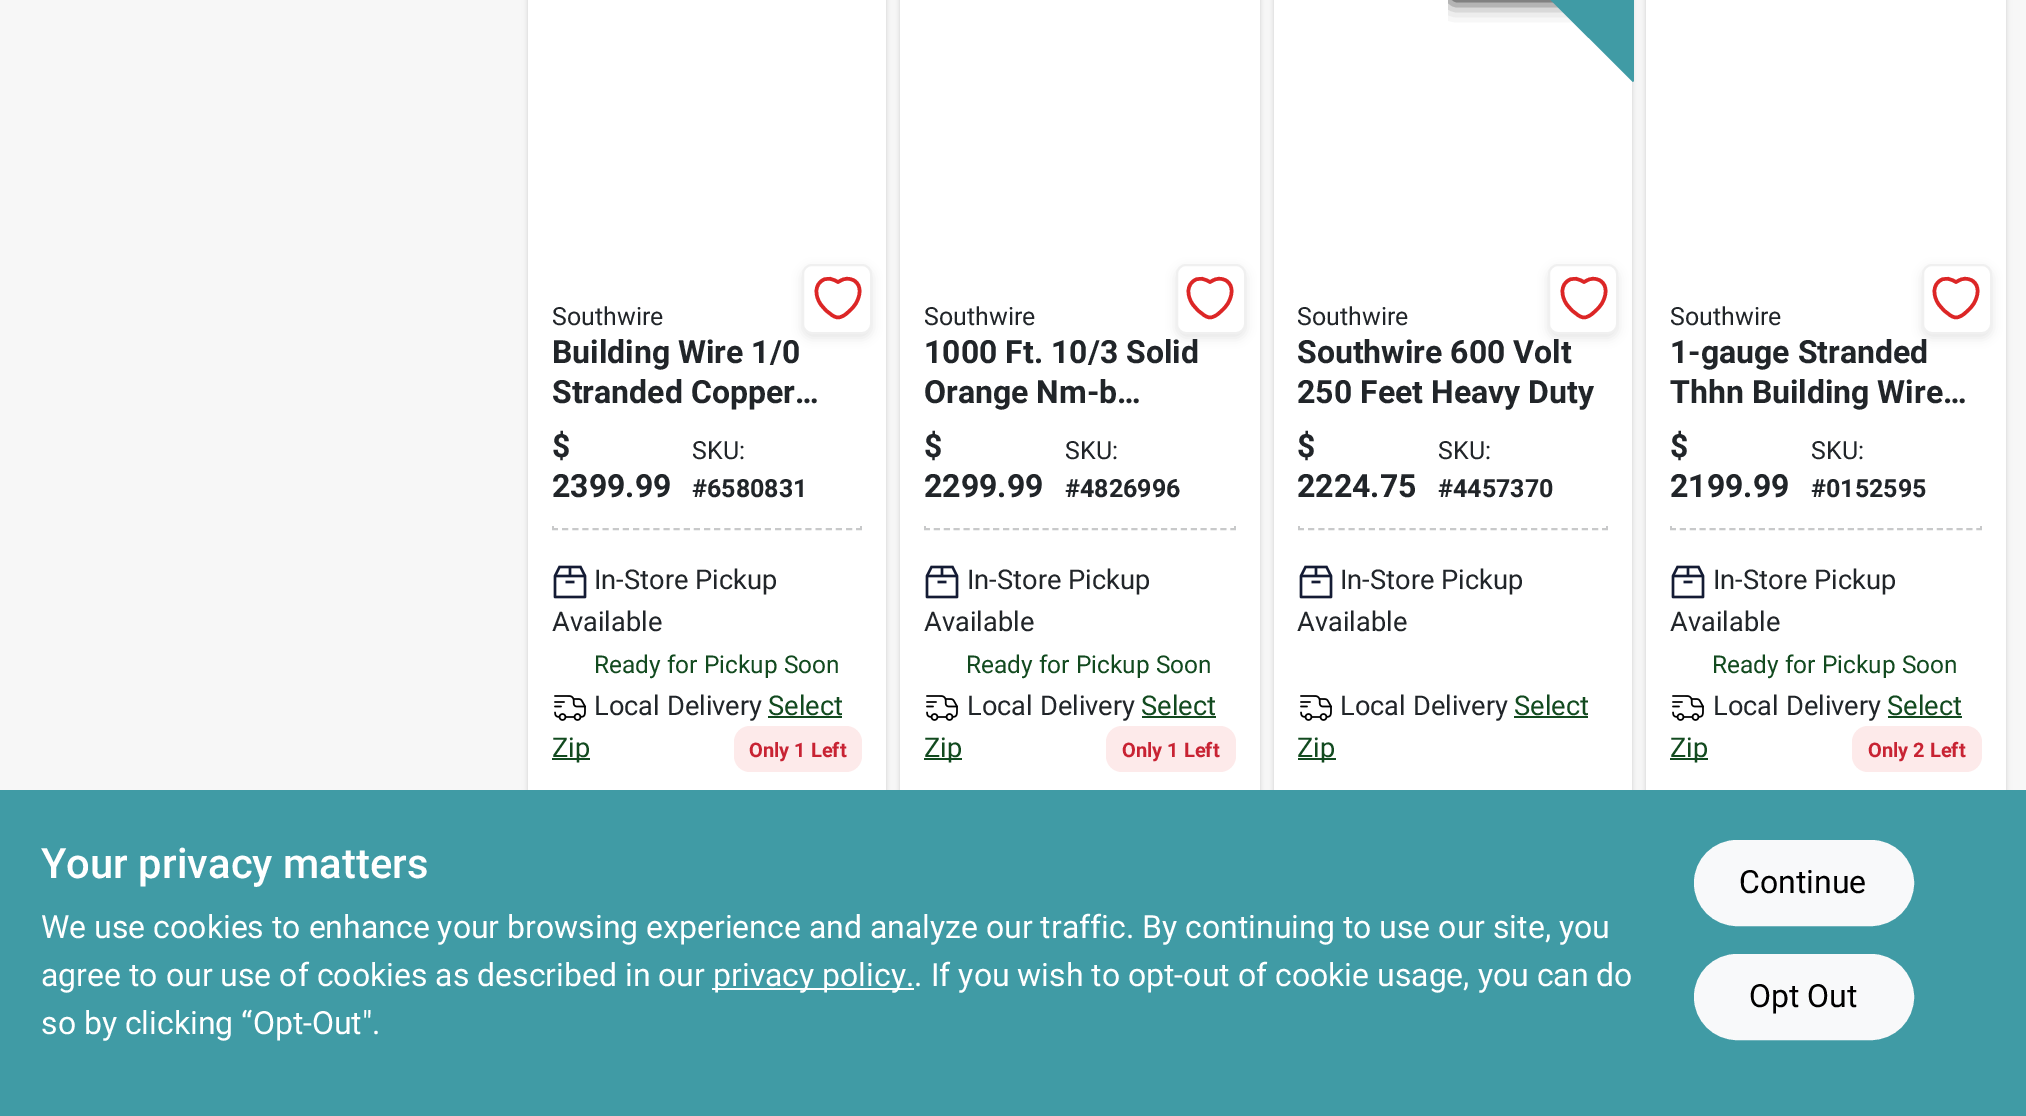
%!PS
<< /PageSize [2026 1116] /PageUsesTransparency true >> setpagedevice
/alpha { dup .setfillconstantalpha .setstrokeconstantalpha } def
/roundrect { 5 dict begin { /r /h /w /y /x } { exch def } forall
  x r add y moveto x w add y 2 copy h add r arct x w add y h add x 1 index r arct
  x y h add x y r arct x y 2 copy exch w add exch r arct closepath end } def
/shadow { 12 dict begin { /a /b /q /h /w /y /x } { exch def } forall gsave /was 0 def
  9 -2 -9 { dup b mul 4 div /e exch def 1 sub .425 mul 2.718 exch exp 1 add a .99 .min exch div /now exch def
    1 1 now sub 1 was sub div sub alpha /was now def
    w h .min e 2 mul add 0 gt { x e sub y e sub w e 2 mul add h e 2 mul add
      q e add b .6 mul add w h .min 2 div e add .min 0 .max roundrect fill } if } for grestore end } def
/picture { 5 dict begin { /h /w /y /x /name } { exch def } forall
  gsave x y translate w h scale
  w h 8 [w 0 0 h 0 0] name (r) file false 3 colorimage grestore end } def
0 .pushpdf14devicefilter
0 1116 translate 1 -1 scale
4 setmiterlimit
0.969 setgray
0 0 2026 1116 rectfill
0 setgray
528 -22 358 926 16 2 0.06 shadow
528 -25 358 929 16 3 0.1 shadow
1 setgray
528 0 358 790 rectfill
0 setgray
802 268 70 70 10 5 0.1 shadow
1 setgray
803 265 68 68 9 roundrect gsave fill grestore
0.941 setgray
2 setlinewidth
stroke
0.863 0.149 0.149 setrgbcolor
3.5 setlinewidth
1 setlinecap
newpath 854 280.5 moveto 849.5 278 844.5 278 840 281 curveto 838 282 lineto 836 281 lineto 832 278.5 828 278 824 279.5 curveto 814 284 815 296 820.5 304 curveto 823.5 308.5 828 313 833.5 316 curveto 838 319 842 317 846 314 curveto 850.5 310 852.5 308.5 855.5 304 curveto 860 297 862.5 285.5 854 280.5 curveto closepath stroke
/Roboto-Regular [25 0 0 -25 0 0] selectfont
0.129 0.145 0.161 setrgbcolor
552 325 moveto (Southwire) show
/Roboto-Bold [32 0 0 -32 0 0] selectfont
552 363 moveto (Building Wire 1/0) show
552 403 moveto (Stranded Copper…) show
552 457 moveto ($) show
552 497 moveto (2399.99) show
/Roboto-Regular [25 0 0 -25 0 0] selectfont
692 459 moveto (SKU:) show
/Roboto-Bold [25 0 0 -25 0 0] selectfont
692 497 moveto (#6580831) show
0.784 0.788 0.792 setrgbcolor
860 526 2 4 rectfill
2 setlinewidth
0 setlinecap
[6 4.14] 0 setdash
newpath 552 529 moveto 862 529 lineto stroke
552 526 2 4 rectfill
(img1.rgb) 553 565 34 34 picture
/Roboto-Regular [27.25 0 0 -27.25 0 0] selectfont
0.129 0.145 0.161 setrgbcolor
594 589 moveto (In-Store Pickup) show
552 631 moveto (Available) show
/Roboto-Regular [24.5 0 0 -24.5 0 0] selectfont
0.071 0.29 0.122 setrgbcolor
594 673 moveto (Ready for Pickup Soon) show
(img2.rgb) 554 695 32 26 picture
/Roboto-Regular [27.25 0 0 -27.25 0 0] selectfont
0.129 0.145 0.161 setrgbcolor
594 715 moveto (Local Delivery) show
0.071 0.29 0.122 setrgbcolor
768 715 moveto (Select) show
768 716 74 2 rectfill
552 758 38 2 rectfill
552 757 moveto (Zip) show
0.992 0.918 0.918 setrgbcolor
734 726 128 46 16 roundrect fill
/Roboto-Bold [20 0 0 -20 0 0] selectfont
0.784 0.137 0.2 setrgbcolor
749 757 moveto (Only 1 Left) show
0 setgray
900 -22 360 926 16 2 0.06 shadow
900 -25 360 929 16 3 0.1 shadow
1 setgray
900 0 360 790 rectfill
0 setgray
1176 268 70 70 10 5 0.1 shadow
1 setgray
1177 265 68 68 9 roundrect gsave fill grestore
0.941 setgray
[] 0 setdash
stroke
0.863 0.149 0.149 setrgbcolor
3.5 setlinewidth
1 setlinecap
newpath 1226 280.5 moveto 1221.5 278 1216.5 278 1212 281 curveto 1210 282 lineto 1208 281 lineto 1204 278.5 1200 278 1196 279.5 curveto 1186 284 1187 296 1192.5 304 curveto 1195.5 308.5 1200 313 1205.5 316 curveto 1210 319 1214 317 1218 314 curveto 1222.5 310 1224.5 308.5 1227.5 304 curveto 1232 297 1234.5 285.5 1226 280.5 curveto closepath stroke
/Roboto-Regular [25 0 0 -25 0 0] selectfont
0.129 0.145 0.161 setrgbcolor
924 325 moveto (Southwire) show
/Roboto-Bold [32 0 0 -32 0 0] selectfont
924 363 moveto (1000 Ft. 10/3 Solid) show
924 403 moveto (Orange Nm-b…) show
924 457 moveto ($) show
924 497 moveto (2299.99) show
/Roboto-Regular [25 0 0 -25 0 0] selectfont
1065 459 moveto (SKU:) show
/Roboto-Bold [25 0 0 -25 0 0] selectfont
1065 497 moveto (#4826996) show
0.784 0.788 0.792 setrgbcolor
1234 526 2 4 rectfill
2 setlinewidth
0 setlinecap
[6 3.88] 0 setdash
newpath 924 529 moveto 1236 529 lineto stroke
924 526 2 4 rectfill
(img1.rgb) 925 565 34 34 picture
/Roboto-Regular [27.25 0 0 -27.25 0 0] selectfont
0.129 0.145 0.161 setrgbcolor
967 589 moveto (In-Store Pickup) show
924 631 moveto (Available) show
/Roboto-Regular [24.5 0 0 -24.5 0 0] selectfont
0.071 0.29 0.122 setrgbcolor
966 673 moveto (Ready for Pickup Soon) show
(img2.rgb) 926 695 32 26 picture
/Roboto-Regular [27.25 0 0 -27.25 0 0] selectfont
0.129 0.145 0.161 setrgbcolor
967 715 moveto (Local Delivery) show
0.071 0.29 0.122 setrgbcolor
1141 715 moveto (Select) show
1142 716 74 2 rectfill
924 758 38 2 rectfill
924 757 moveto (Zip) show
0.992 0.918 0.918 setrgbcolor
1106 726 130 46 16 roundrect fill
/Roboto-Bold [20 0 0 -20 0 0] selectfont
0.784 0.137 0.2 setrgbcolor
1122 757 moveto (Only 1 Left) show
0 setgray
1274 -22 358 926 16 2 0.06 shadow
1274 -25 358 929 16 3 0.1 shadow
1 setgray
1274 0 358 790 rectfill
0 setgray
1646 -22 360 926 16 2 0.06 shadow
1646 -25 360 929 16 3 0.1 shadow
1 setgray
1646 0 360 790 rectfill
gsave
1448 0 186 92 rectclip
0 setgray
1452 -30 230 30 0 10 1 shadow
grestore
gsave
1448 0 186 92 rectclip
0.251 0.608 0.647 setrgbcolor
newpath 1501 -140 moveto 1678 37 lineto 1633 82 lineto 1456 -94 lineto closepath fill
grestore
0 setgray
1548 268 70 70 10 5 0.1 shadow
1 setgray
1549 265 68 68 9 roundrect gsave fill grestore
0.941 setgray
[] 0 setdash
stroke
0.863 0.149 0.149 setrgbcolor
3.5 setlinewidth
1 setlinecap
newpath 1600 280.5 moveto 1595.5 278 1590.5 278 1586 281 curveto 1584 282 lineto 1582 281 lineto 1578 278.5 1574 278 1570 279.5 curveto 1560 284 1561 296 1566.5 304 curveto 1569.5 308.5 1574 313 1579.5 316 curveto 1584 319 1588 317 1592 314 curveto 1596.5 310 1598.5 308.5 1601.5 304 curveto 1606 297 1608.5 285.5 1600 280.5 curveto closepath stroke
/Roboto-Regular [25 0 0 -25 0 0] selectfont
0.129 0.145 0.161 setrgbcolor
1297 325 moveto (Southwire) show
/Roboto-Bold [32 0 0 -32 0 0] selectfont
1297 363 moveto (Southwire 600 Volt) show
1297 403 moveto (250 Feet Heavy Duty) show
1297 457 moveto ($) show
1297 497 moveto (2224.75) show
/Roboto-Regular [25 0 0 -25 0 0] selectfont
1438 459 moveto (SKU:) show
/Roboto-Bold [25 0 0 -25 0 0] selectfont
1438 497 moveto (#4457370) show
0.784 0.788 0.792 setrgbcolor
1606 526 2 4 rectfill
2 setlinewidth
0 setlinecap
[6 4.14] 0 setdash
newpath 1298 529 moveto 1608 529 lineto stroke
1298 526 2 4 rectfill
(img1.rgb) 1299 565 34 34 picture
/Roboto-Regular [27.25 0 0 -27.25 0 0] selectfont
0.129 0.145 0.161 setrgbcolor
1340 589 moveto (In-Store Pickup) show
1297 631 moveto (Available) show
(img2.rgb) 1300 695 32 26 picture
1340 715 moveto (Local Delivery) show
0.071 0.29 0.122 setrgbcolor
1514 715 moveto (Select) show
1514 716 74 2 rectfill
1298 758 38 2 rectfill
1297 757 moveto (Zip) show
0 setgray
1922 268 70 70 10 5 0.1 shadow
1 setgray
1923 265 68 68 9 roundrect gsave fill grestore
0.941 setgray
[] 0 setdash
stroke
0.863 0.149 0.149 setrgbcolor
3.5 setlinewidth
1 setlinecap
newpath 1972 280.5 moveto 1967.5 278 1962.5 278 1958 281 curveto 1956 282 lineto 1954 281 lineto 1950 278.5 1946 278 1942 279.5 curveto 1932 284 1933 296 1938.5 304 curveto 1941.5 308.5 1946 313 1951.5 316 curveto 1956 319 1960 317 1964 314 curveto 1968.5 310 1970.5 308.5 1973.5 304 curveto 1978 297 1980.5 285.5 1972 280.5 curveto closepath stroke
/Roboto-Regular [25 0 0 -25 0 0] selectfont
0.129 0.145 0.161 setrgbcolor
1670 325 moveto (Southwire) show
/Roboto-Bold [32 0 0 -32 0 0] selectfont
1670 363 moveto (1-gauge Stranded) show
1670 403 moveto (Thhn Building Wire…) show
1670 457 moveto ($) show
1670 497 moveto (2199.99) show
/Roboto-Regular [25 0 0 -25 0 0] selectfont
1811 459 moveto (SKU:) show
/Roboto-Bold [25 0 0 -25 0 0] selectfont
1811 497 moveto (#0152595) show
0.784 0.788 0.792 setrgbcolor
1980 526 2 4 rectfill
2 setlinewidth
0 setlinecap
[6 3.88] 0 setdash
newpath 1670 529 moveto 1982 529 lineto stroke
1670 526 2 4 rectfill
(img1.rgb) 1671 565 34 34 picture
/Roboto-Regular [27.25 0 0 -27.25 0 0] selectfont
0.129 0.145 0.161 setrgbcolor
1713 589 moveto (In-Store Pickup) show
1670 631 moveto (Available) show
/Roboto-Regular [24.5 0 0 -24.5 0 0] selectfont
0.071 0.29 0.122 setrgbcolor
1712 673 moveto (Ready for Pickup Soon) show
(img2.rgb) 1672 695 32 26 picture
/Roboto-Regular [27.25 0 0 -27.25 0 0] selectfont
0.129 0.145 0.161 setrgbcolor
1713 715 moveto (Local Delivery) show
0.071 0.29 0.122 setrgbcolor
1887 715 moveto (Select) show
1888 716 74 2 rectfill
1670 758 38 2 rectfill
1670 757 moveto (Zip) show
0.992 0.918 0.918 setrgbcolor
1852 726 130 46 16 roundrect fill
/Roboto-Bold [20 0 0 -20 0 0] selectfont
0.784 0.137 0.2 setrgbcolor
1868 757 moveto (Only 2 Left) show
0.251 0.608 0.647 setrgbcolor
0 790 2026 326 rectfill
/Roboto-Medium [41.75 0 0 -41.75 0 0] selectfont
1 setgray
41 878 moveto (Your privacy matters) show
/Roboto-Regular [32 0 0 -32 0 0] selectfont
41 938 moveto (We use cookies to enhance your browsing experience and analyze our traffic. By continuing to use our site, you) show
41 986 moveto (agree to our use of cookies as described in our) show
712 988 202 2 rectfill
713 986 moveto (privacy policy.. If you wish to opt-out of cookie usage, you can do) show
41 1034 moveto (so by clicking “Opt-Out".) show
0.973 0.976 0.98 setrgbcolor
1695 841 218 84 42 roundrect gsave fill grestore
[] 0 setdash
stroke
0 setgray
1739 893 moveto (Continue) show
0.973 0.976 0.98 setrgbcolor
1695 955 218 84 42 roundrect gsave fill grestore
stroke
0 setgray
1749 1007 moveto (Opt Out) show
.poppdf14devicefilter showpage
